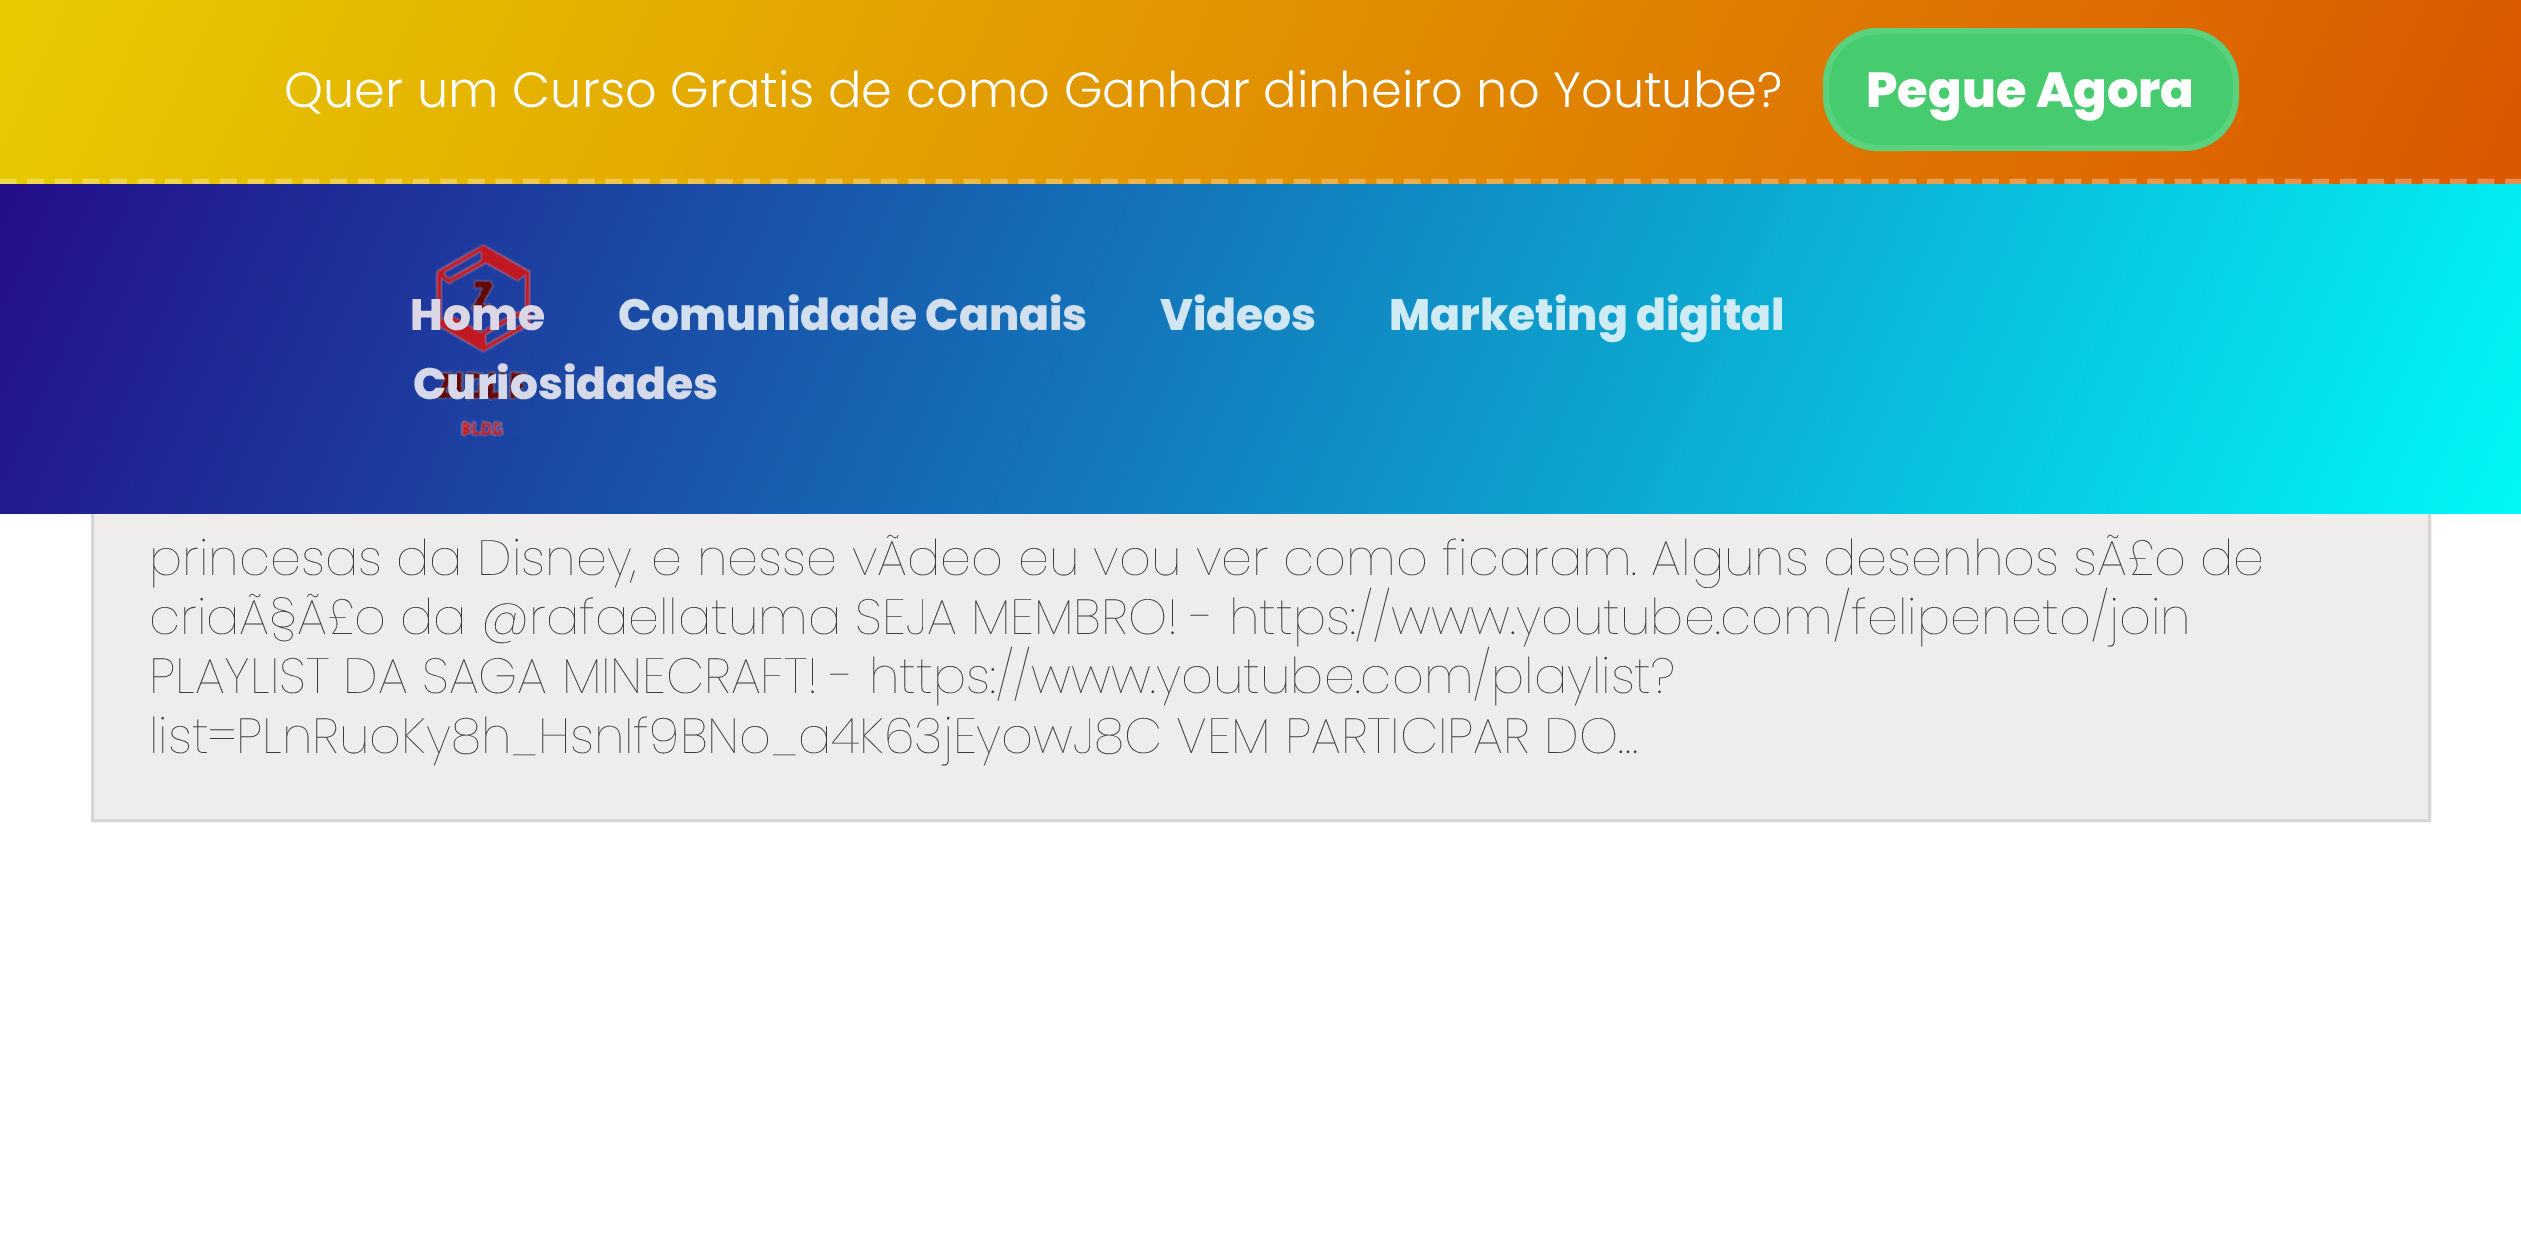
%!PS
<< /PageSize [2521 1245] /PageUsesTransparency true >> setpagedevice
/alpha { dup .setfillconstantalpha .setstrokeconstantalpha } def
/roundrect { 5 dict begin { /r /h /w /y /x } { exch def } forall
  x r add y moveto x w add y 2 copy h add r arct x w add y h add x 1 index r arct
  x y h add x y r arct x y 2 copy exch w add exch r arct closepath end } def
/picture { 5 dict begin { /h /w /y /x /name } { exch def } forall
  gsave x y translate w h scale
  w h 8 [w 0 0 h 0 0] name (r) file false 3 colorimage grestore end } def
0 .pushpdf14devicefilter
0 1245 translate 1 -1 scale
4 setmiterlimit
1 setgray
0 0 2521 1245 rectfill
gsave newpath 0 0 moveto 2521 0 lineto 2521 179 lineto 0 179 lineto closepath clip newpath
<< /ShadingType 2 /ColorSpace /DeviceRGB /Coords [175 -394 2346 573] /Extend [true true] /Function << /FunctionType 2 /Domain [0 1] /C0 [0.91 0.8 0] /C1 [0.859 0.341 0] /N 1 >> >> shfill grestore
gsave newpath 0 179 moveto 2521 179 lineto 2521 184 lineto 0 184 lineto closepath clip newpath
<< /ShadingType 2 /ColorSpace /DeviceRGB /Coords [175 -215 2346 751] /Extend [true true] /Function << /FunctionType 2 /Domain [0 1] /C0 [0.91 0.8 0] /C1 [0.859 0.341 0] /N 1 >> >> shfill grestore
0.3 alpha
5.5 setlinewidth
[16.5 11.03] 0 setdash
newpath 0 181.5 moveto 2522 181.5 lineto stroke
/Poppins-Light [49.5 0 0 -49.5 0 0] selectfont
1 alpha
284 107 moveto (Quer um Curso Gratis de como Ganhar dinheiro no Youtube?) show
0.275 0.8 0.431 setrgbcolor
1823 28 416 123 55 roundrect fill
0.1 alpha
1 setgray
6 setlinewidth
[] 0 setdash
1826 31 410 117 52 roundrect stroke
/Poppins-ExtraBold [49.5 0 0 -49.5 0 0] selectfont
1 alpha
1866 107 moveto (Pegue Agora) show
0.937 0.925 0.925 setrgbcolor
94 514 2334 305 rectfill
0.843 0.831 0.831 setrgbcolor
3 setlinewidth
92.5 411.5 2337 409 rectstroke
gsave newpath 0 184 moveto 2521 184 lineto 2521 514 lineto 0 514 lineto closepath clip newpath
<< /ShadingType 2 /ColorSpace /DeviceRGB /Coords [147 -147 2374 845] /Extend [true true] /Function << /FunctionType 2 /Domain [0 1] /C0 [0.145 0.055 0.541] /C1 [0 0.976 0.969] /N 1 >> >> shfill grestore
(img1.rgb) 435 243 96 194 picture
/Poppins-ExtraBold [44 0 0 -44 0 0] selectfont
0.859 0.843 0.902 setrgbcolor
410 330 moveto (Home) show
0.82 0.875 0.937 setrgbcolor
618 330 moveto (Comunidade Canais) show
0.816 0.902 0.949 setrgbcolor
1160 330 moveto (Videos) show
0.812 0.925 0.961 setrgbcolor
1389 330 moveto (Marketing digital) show
0.835 0.851 0.914 setrgbcolor
413 399 moveto (Curiosidades) show
/Poppins-Thin [49.5 0 0 -49.5 0 0] selectfont
0.251 0.235 0.235 setrgbcolor
149 575 moveto (princesas da Disney, e nesse vÃdeo eu vou ver como ficaram. Alguns desenhos sÃ£o de) show
149 634 moveto (criaÃ§Ã£o da @rafaellatuma SEJA MEMBRO! - https://www.youtube.com/felipeneto/join) show
149 693 moveto (PLAYLIST DA SAGA MINECRAFT! - https://www.youtube.com/playlist?) show
149 753 moveto (list=PLnRuoKy8h_HsnIf9BNo_a4K63jEyowJ8C VEM PARTICIPAR DO…) show
.poppdf14devicefilter showpage
